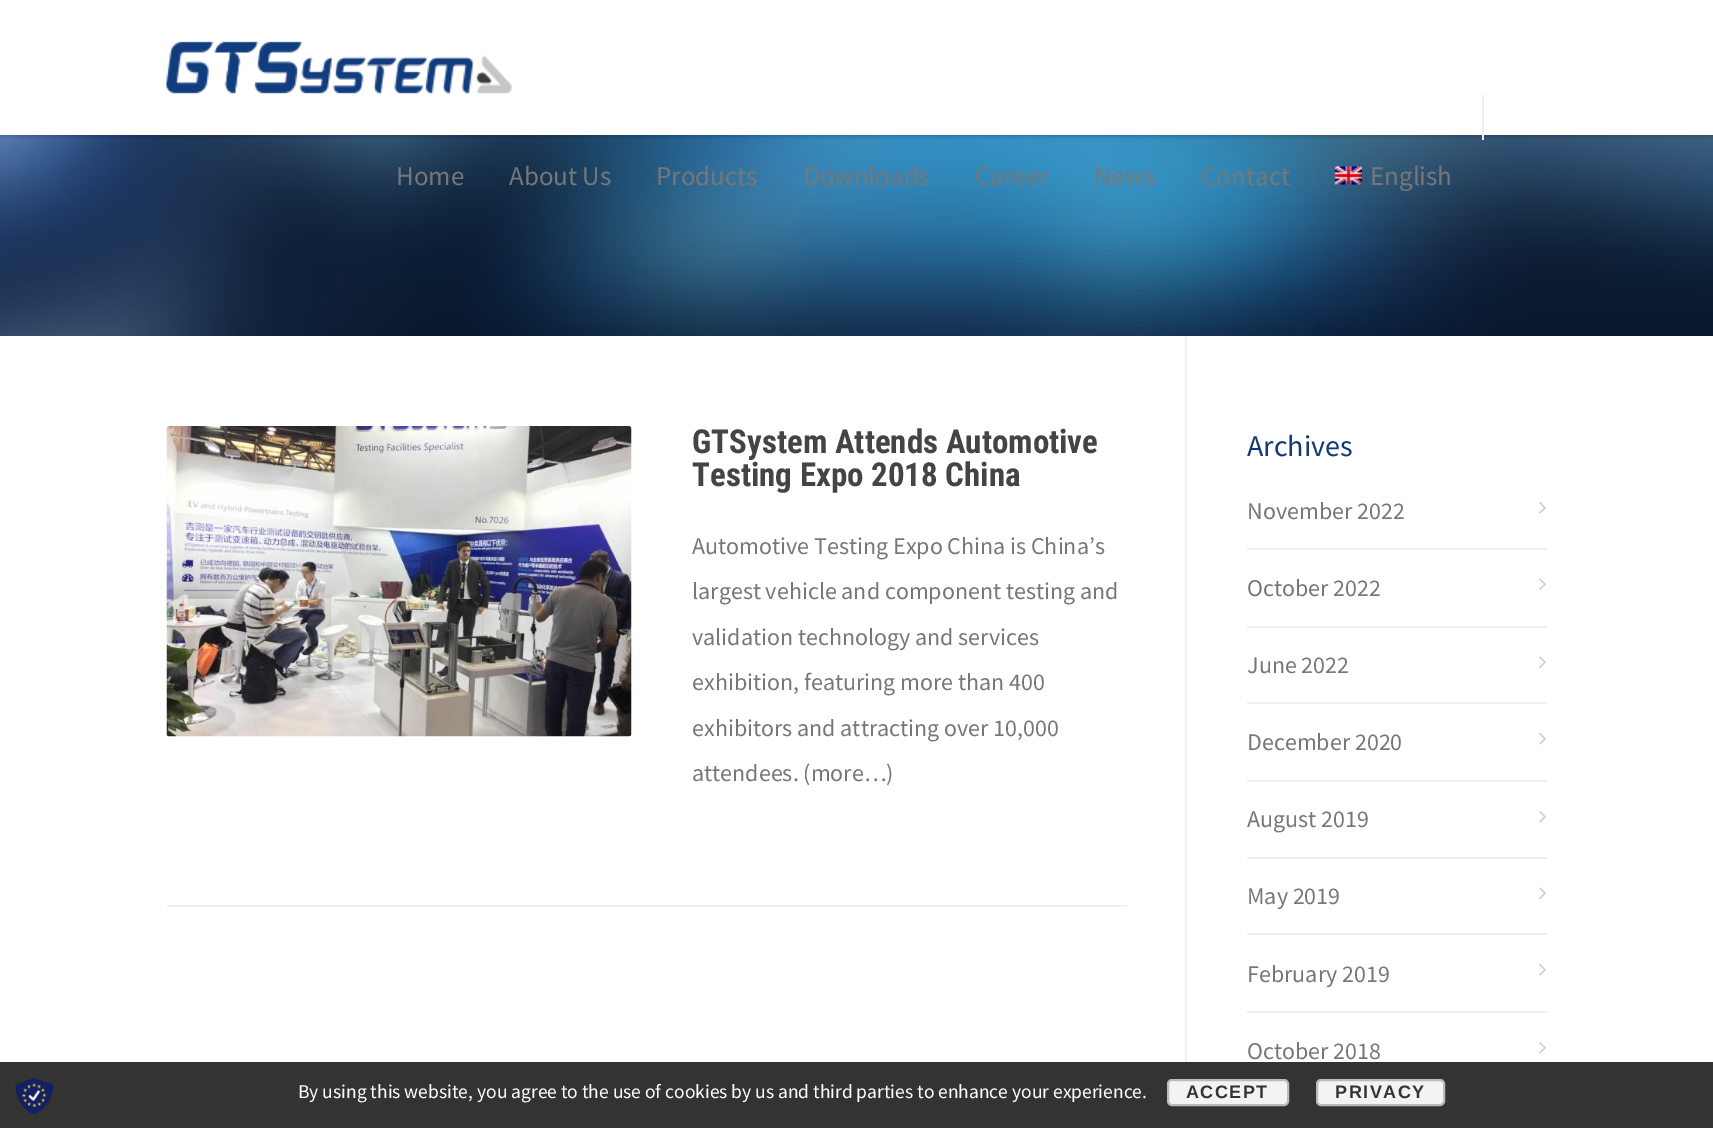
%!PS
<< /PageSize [1713 1128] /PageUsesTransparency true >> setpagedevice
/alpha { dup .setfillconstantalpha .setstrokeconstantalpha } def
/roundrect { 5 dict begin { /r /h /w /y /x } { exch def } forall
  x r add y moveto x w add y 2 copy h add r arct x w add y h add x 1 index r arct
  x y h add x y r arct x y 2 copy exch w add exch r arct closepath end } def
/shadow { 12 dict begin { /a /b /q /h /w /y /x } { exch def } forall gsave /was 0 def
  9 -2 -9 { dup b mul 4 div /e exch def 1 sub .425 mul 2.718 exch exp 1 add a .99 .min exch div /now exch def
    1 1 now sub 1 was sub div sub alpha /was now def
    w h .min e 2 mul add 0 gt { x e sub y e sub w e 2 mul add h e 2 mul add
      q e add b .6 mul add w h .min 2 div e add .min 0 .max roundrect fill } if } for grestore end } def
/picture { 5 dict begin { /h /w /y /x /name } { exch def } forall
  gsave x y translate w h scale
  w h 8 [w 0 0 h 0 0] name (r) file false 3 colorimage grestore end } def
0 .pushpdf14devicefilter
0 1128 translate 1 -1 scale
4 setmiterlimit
1 setgray
0 0 1713 1128 rectfill
(img1.rgb) 0 135 1713 201 picture
0 setgray
-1 -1 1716 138 0 1.5 0.16 shadow
1 setgray
0 0 1713 135 rectfill
(img2.rgb) 166 41 346 53 picture
0.937 setgray
1482 95 2 45 rectfill
/SourceSansPro-Regular [27 0 0 -27 0 0] selectfont
0.467 setgray
396 185 moveto (Home) show
509 185 moveto (About Us) show
656 185 moveto (Products) show
803 185 moveto (Downloads) show
975 185 moveto (Career) show
1094 185 moveto (News) show
1201 185 moveto (Contact) show
(img3.rgb) 1334 166 28 19 picture
1370 185 moveto (English) show
0.937 setgray
167 905 960 2 rectfill
(img4.rgb) 166 426 466 311 picture
/RobotoCondensed-Bold [33 0 0 -33 0 0] selectfont
0.267 setgray
692 453 moveto (GTSystem Attends Automotive) show
692 486 moveto (Testing Expo 2018 China) show
/SourceSansPro-Regular [24 0 0 -24 0 0] selectfont
0.467 setgray
692 554 moveto (Automotive Testing Expo China is China’s) show
692 599 moveto (largest vehicle and component testing and) show
692 645 moveto (validation technology and services) show
692 690 moveto (exhibition, featuring more than 400) show
692 736 moveto (exhibitors and attracting over 10,000) show
692 781 moveto (attendees. \(more…\)) show
0.937 setgray
1185 336 2 726 rectfill
/SourceSansPro-Regular [30 0 0 -30 0 0] selectfont
0.071 0.224 0.447 setrgbcolor
1247 456 moveto (Archives) show
0.937 setgray
1247 548 300 2 rectfill
/SourceSansPro-Regular [24 0 0 -24 0 0] selectfont
0.467 setgray
1247 519 moveto (November 2022) show
(img5.rgb) 1539 502 7 12 picture
0.937 setgray
1247 626 300 2 rectfill
0.467 setgray
1247 596 moveto (October 2022) show
(img6.rgb) 1539 578 7 12 picture
0.937 setgray
1247 702 300 2 rectfill
0.467 setgray
1247 673 moveto (June 2022) show
(img6.rgb) 1539 656 7 12 picture
0.937 setgray
1247 780 300 2 rectfill
0.467 setgray
1247 750 moveto (December 2020) show
(img5.rgb) 1539 733 7 12 picture
0.937 setgray
1247 857 300 2 rectfill
0.467 setgray
1247 827 moveto (August 2019) show
(img5.rgb) 1539 811 7 12 picture
0.937 setgray
1247 933 300 2 rectfill
0.467 setgray
1247 904 moveto (May 2019) show
(img6.rgb) 1539 887 7 12 picture
0.937 setgray
1247 1011 300 2 rectfill
0.467 setgray
1247 982 moveto (February 2019) show
(img5.rgb) 1539 964 7 12 picture
1247 1059 moveto (October 2018) show
(img5.rgb) 1539 1042 7 12 picture
0.2 setgray
0 1062 1713 66 rectfill
(img7.rgb) 15 1077 38 37 picture
/SourceSansPro-Regular [19.5 0 0 -19.5 0 0] selectfont
1 setgray
298 1098 moveto (By using this website, you agree to the use of cookies by us and third parties to enhance your experience.) show
0.953 setgray
1168 1080 120 25 4 roundrect gsave fill grestore
0.733 setgray
2 setlinewidth
stroke
/LiberationSans-Bold [18 0 0 -18 0 0] selectfont
0.2 setgray
1186 1098 moveto 1.5 0 (ACCEPT) ashow
0.953 setgray
1317 1080 127 25 4 roundrect gsave fill grestore
0.733 setgray
stroke
0.2 setgray
1335 1098 moveto 1.5 0 (PRIVACY) ashow
.poppdf14devicefilter showpage
